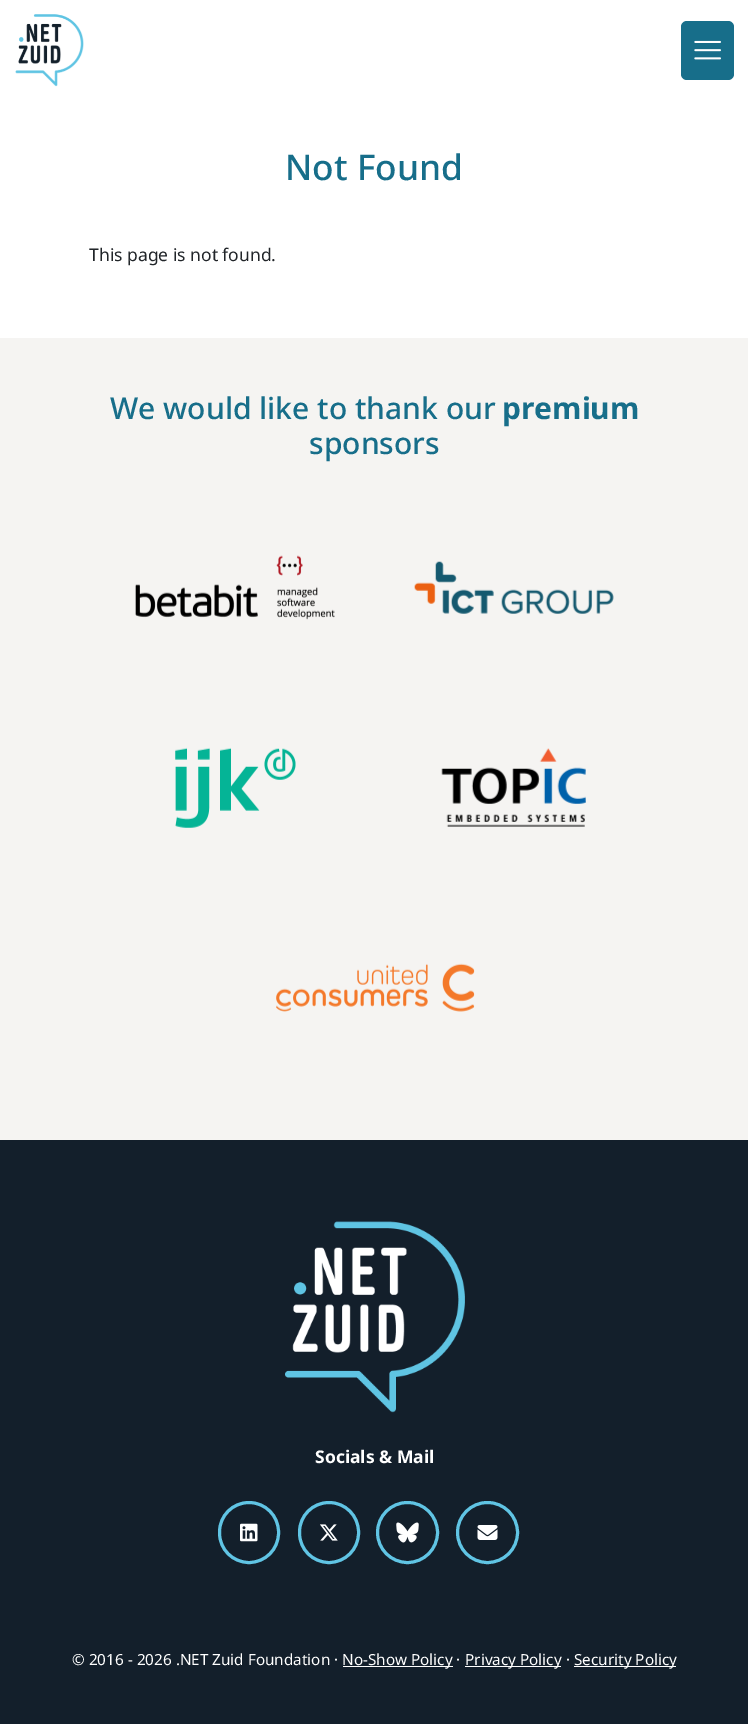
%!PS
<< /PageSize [748 1724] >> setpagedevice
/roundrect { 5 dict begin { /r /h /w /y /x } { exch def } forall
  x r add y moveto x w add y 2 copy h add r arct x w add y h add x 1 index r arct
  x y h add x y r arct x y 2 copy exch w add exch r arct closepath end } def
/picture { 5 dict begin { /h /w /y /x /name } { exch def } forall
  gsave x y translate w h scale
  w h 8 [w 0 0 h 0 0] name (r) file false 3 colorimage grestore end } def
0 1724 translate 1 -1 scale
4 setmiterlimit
1 setgray
0 0 748 1724 rectfill
(img1.rgb) 15 14 69 73 picture
0.09 0.431 0.541 setrgbcolor
681 21 53 59 6 roundrect fill
(img2.rgb) 694 40 27 20 picture
/NotoSans-Medium [35.25 0 0 -35.25 0 0] selectfont
285 180 moveto (Not Found) show
/NotoSans-Regular [17.5 0 0 -17.5 0 0] selectfont
0.129 0.145 0.161 setrgbcolor
89 261 moveto (This page is not found.) show
0.961 0.957 0.949 setrgbcolor
0 338 748 802 rectfill
/NotoSans-Medium [30 0 0 -30 0 0] selectfont
0.09 0.431 0.541 setrgbcolor
110 419 moveto (We would like to thank our) show
/NotoSans-Bold [30 0 0 -30 0 0] selectfont
502 419 moveto (premium) show
/NotoSans-Medium [30 0 0 -30 0 0] selectfont
309 454 moveto (sponsors) show
(img3.rgb) 135 555 200 65 picture
(img4.rgb) 414 561 200 53 picture
(img5.rgb) 175 747 121 81 picture
(img6.rgb) 441 748 145 79 picture
(img7.rgb) 276 963 199 49 picture
0.075 0.122 0.169 setrgbcolor
0 1140 748 584 rectfill
(img8.rgb) 285 1221 180 192 picture
/NotoSans-Bold [17.5 0 0 -17.5 0 0] selectfont
1 setgray
315 1463 moveto (Socials & Mail) show
0.376 0.769 0.894 setrgbcolor
3 setlinewidth
219.5 1502.5 59 60 29.5 roundrect stroke
(img9.rgb) 240 1523 18 19 picture
299.5 1502.5 59 60 29.5 roundrect stroke
(img10.rgb) 320 1524 18 17 picture
newpath 407.5 1532.5 30 0 360 arc closepath stroke
(img11.rgb) 396 1522 23 21 picture
newpath 487.5 1532.5 30 0 360 arc closepath stroke
(img12.rgb) 477 1525 21 15 picture
/NotoSans-Regular [15.3 0 0 -15.3 0 0] selectfont
1 setgray
72 1665 moveto (© 2016 - 2026 .NET Zuid Foundation ·) show
343 1666 110 1 rectfill
342 1665 moveto (No-Show Policy ·) show
465 1666 96 1 rectfill
465 1665 moveto (Privacy Policy ·) show
574 1666 102 1 rectfill
574 1665 moveto (Security Policy) show
showpage
